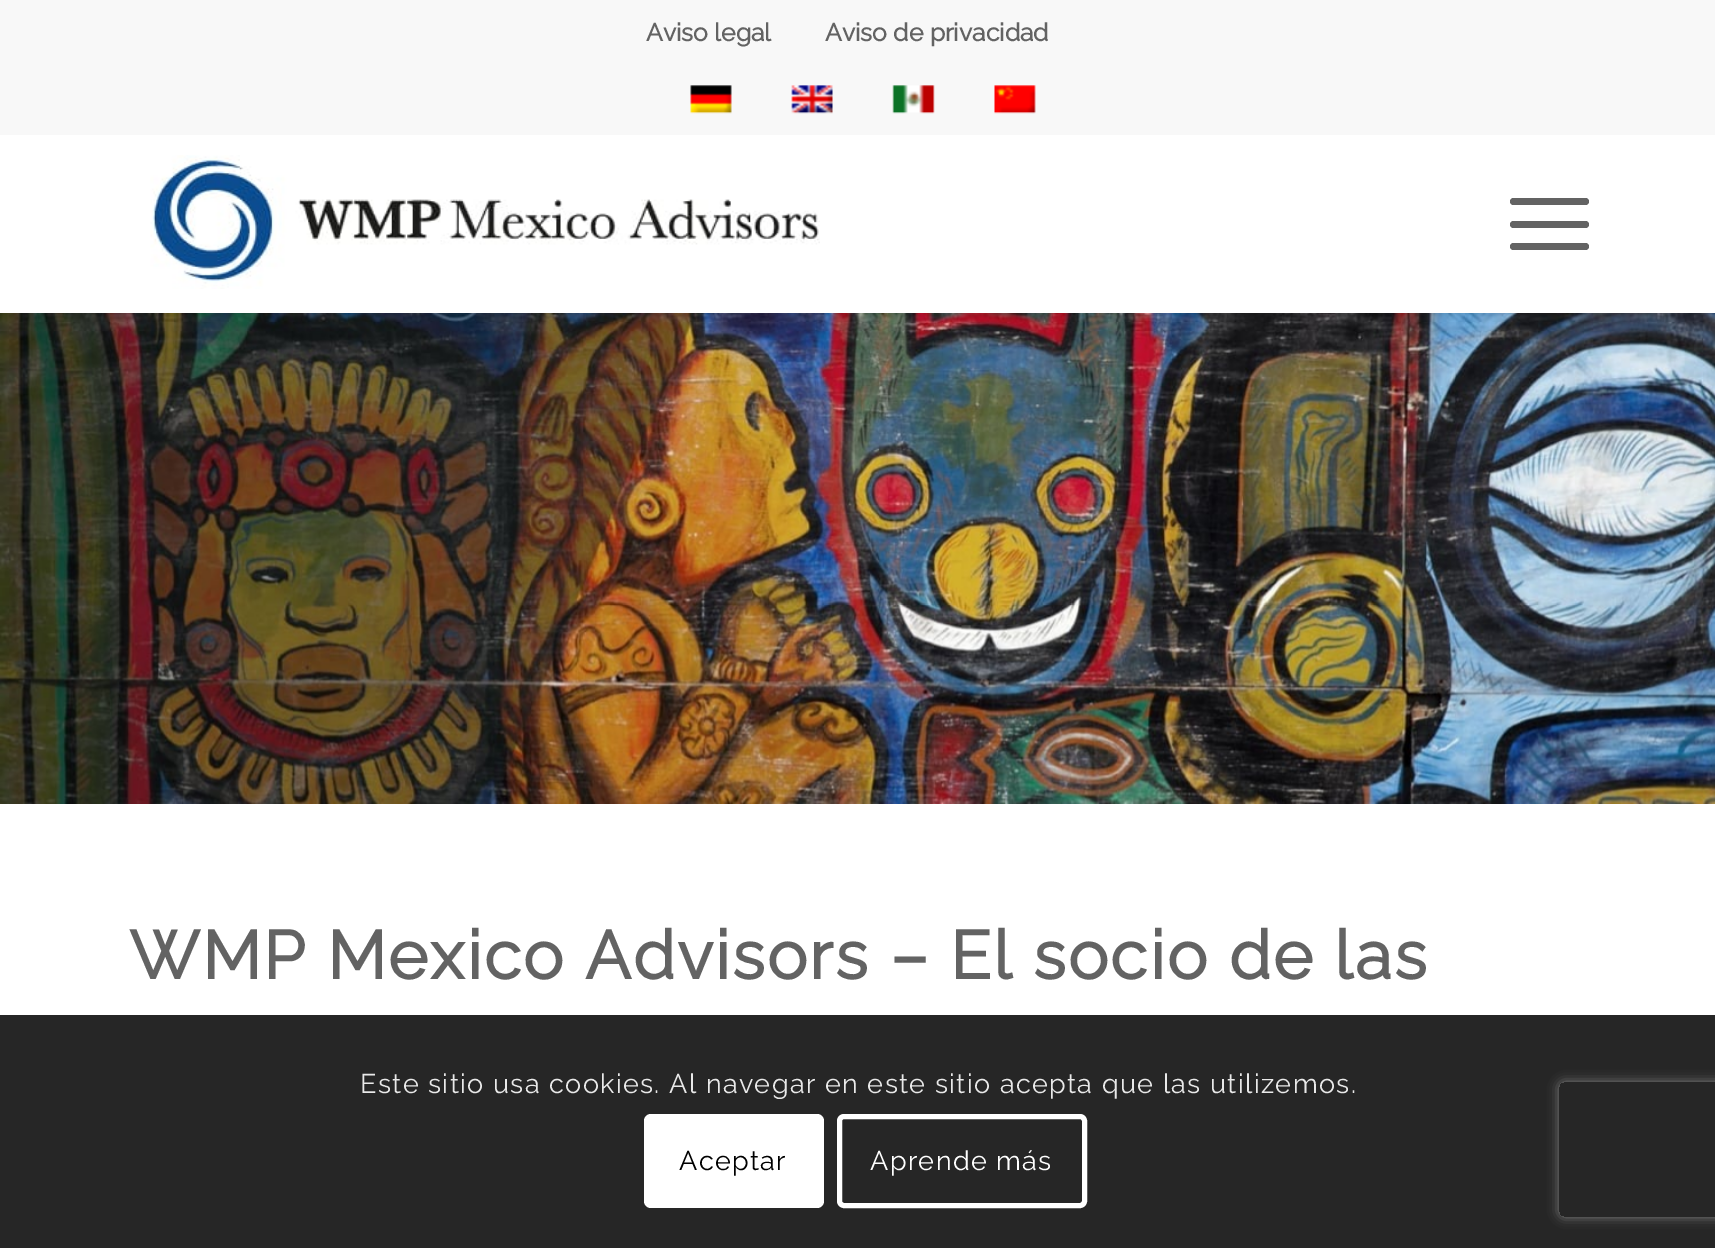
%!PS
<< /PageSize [1715 1248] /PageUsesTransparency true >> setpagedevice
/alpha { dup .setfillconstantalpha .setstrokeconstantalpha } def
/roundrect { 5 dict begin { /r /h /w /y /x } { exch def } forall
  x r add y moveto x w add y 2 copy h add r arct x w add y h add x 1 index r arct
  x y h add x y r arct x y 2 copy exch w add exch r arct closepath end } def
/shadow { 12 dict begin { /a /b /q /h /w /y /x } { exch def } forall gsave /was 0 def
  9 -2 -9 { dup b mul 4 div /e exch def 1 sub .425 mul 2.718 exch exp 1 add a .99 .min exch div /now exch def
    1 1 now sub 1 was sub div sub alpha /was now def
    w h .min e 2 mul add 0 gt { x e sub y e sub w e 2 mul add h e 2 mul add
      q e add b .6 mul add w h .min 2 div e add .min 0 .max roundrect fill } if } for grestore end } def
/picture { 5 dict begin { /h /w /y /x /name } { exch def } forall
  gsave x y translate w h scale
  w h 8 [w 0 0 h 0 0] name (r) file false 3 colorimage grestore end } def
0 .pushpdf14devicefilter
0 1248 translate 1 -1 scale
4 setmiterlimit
1 setgray
0 0 1715 1248 rectfill
(img6.rgb) 0 313 1715 491 picture
0 setgray
-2 -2 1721 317 0 2 0.1 shadow
0.973 setgray
0 0 1715 135 rectfill
/Raleway-Bold [24.75 0 0 -24.75 0 0] selectfont
0.388 setgray
646 41 moveto (Aviso legal) show
825 41 moveto (Aviso de privacidad) show
(img1.rgb) 690 85 42 29 picture
(img2.rgb) 791 85 42 29 picture
(img3.rgb) 892 85 43 29 picture
(img4.rgb) 994 85 42 29 picture
1 setgray
0 135 1715 178 rectfill
(img5.rgb) 150 155 670 134 picture
0.388 setgray
1510 221 79 7 3.5 roundrect fill
1510 198 79 7 3.5 roundrect fill
1510 243 79 7 3.5 roundrect fill
/Raleway-Bold [67.5 0 0 -67.5 0 0] selectfont
129 979 moveto 2.25 0 (WMP Mexico Advisors – El socio de las) ashow
0.85 alpha
0 setgray
0 1015 1715 233 rectfill
/Raleway-Thin [27 0 0 -27 0 0] selectfont
1 alpha
0.914 setgray
360 1093 moveto 1.35 0 (Este sitio usa cookies. Al navegar en este sitio acepta que las utilizemos.) ashow
1 setgray
644 1114 180 94 7 roundrect fill
0 setgray
679 1170 moveto 1.35 0 (Aceptar) ashow
1 setgray
5 setlinewidth
839.5 1116.5 245 89 4.5 roundrect stroke
870 1170 moveto 1.35 0 (Aprende más) ashow
gsave
newpath 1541 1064 moveto 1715 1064 lineto 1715 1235 lineto 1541 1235 lineto closepath 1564 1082 moveto 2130 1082 lineto 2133 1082 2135 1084 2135 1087 curveto 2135 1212 lineto 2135 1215 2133 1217 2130 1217 curveto 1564 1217 lineto 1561 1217 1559 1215 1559 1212 curveto 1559 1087 lineto 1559 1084 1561 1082 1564 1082 curveto closepath eoclip newpath
0.502 setgray
1559 1082 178 135 5 5.5 1 shadow
grestore
.poppdf14devicefilter showpage
